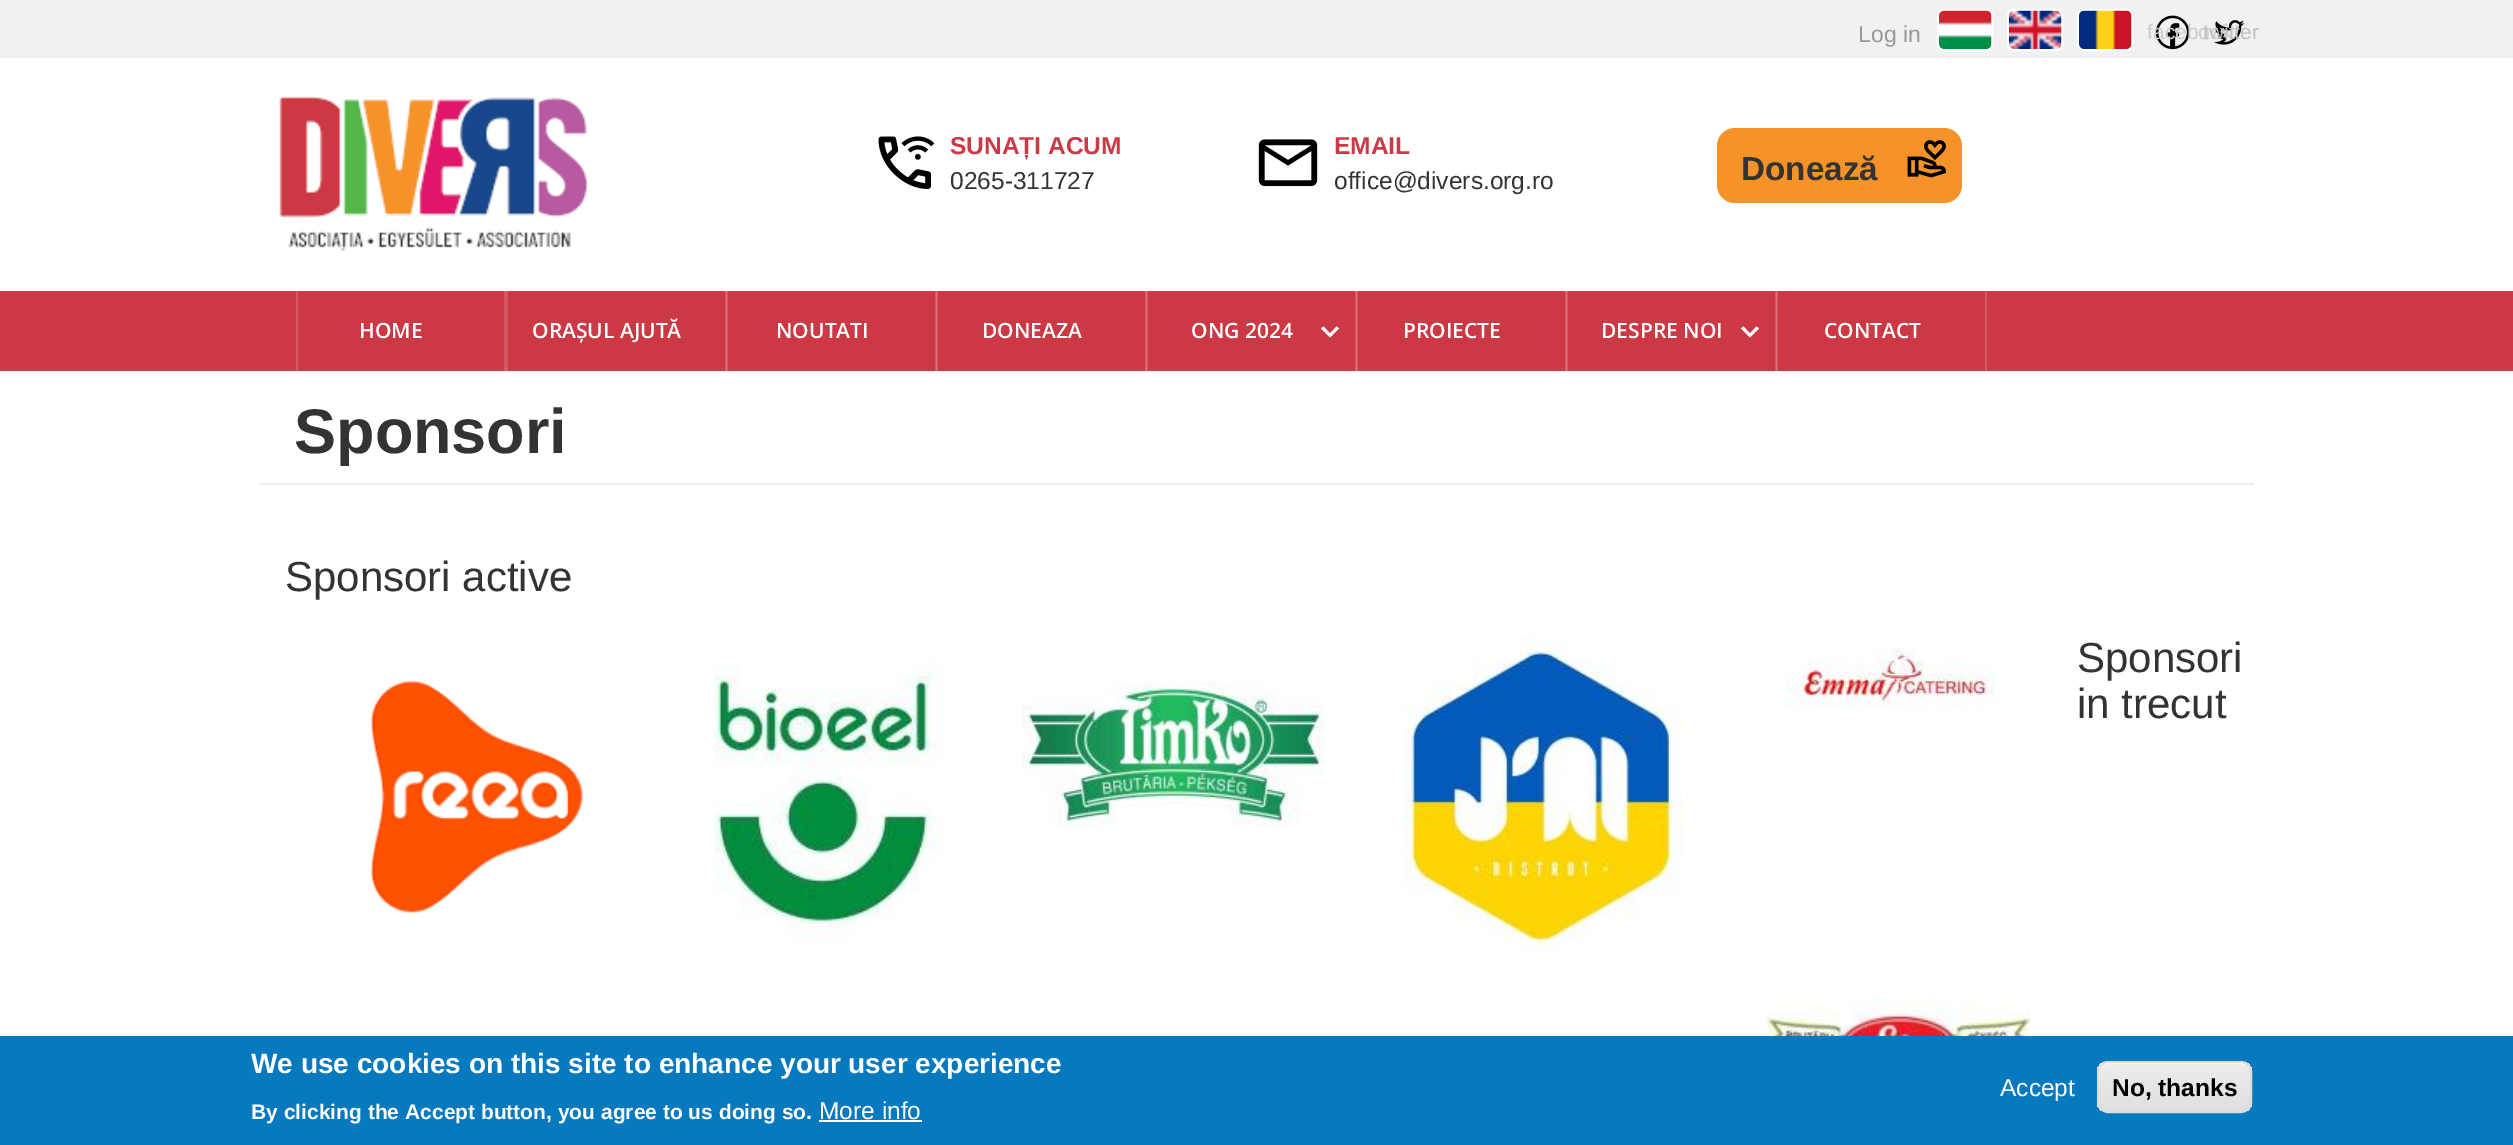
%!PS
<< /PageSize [2513 1145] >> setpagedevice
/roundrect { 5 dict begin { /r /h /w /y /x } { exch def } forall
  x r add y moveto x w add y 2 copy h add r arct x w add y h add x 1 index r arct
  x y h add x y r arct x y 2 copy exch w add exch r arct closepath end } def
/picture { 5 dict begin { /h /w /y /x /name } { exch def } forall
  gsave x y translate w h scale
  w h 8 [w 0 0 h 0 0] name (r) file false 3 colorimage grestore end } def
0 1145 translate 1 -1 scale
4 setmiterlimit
1 setgray
0 0 2513 1145 rectfill
0.945 setgray
0 0 2513 58 rectfill
/LiberationSans-Regular [23 0 0 -23 0 0] selectfont
0.6 setgray
1858 42 moveto (Log in) show
1 setgray
2 setlinewidth
1938 10 54 40 6 roundrect stroke
(img1.rgb) 1939 10 53 39 picture
2008 10 54 40 6 roundrect stroke
(img2.rgb) 2009 10 53 39 picture
2078 10 54 40 6 roundrect stroke
(img3.rgb) 2079 10 53 39 picture
(img4.rgb) 2155 15 35 35 picture
/LiberationSans-Regular [21 0 0 -21 0 0] selectfont
0.804 setgray
2147 39 moveto (facebook) show
(img5.rgb) 2214 20 31 25 picture
0.749 setgray
2203 39 moveto (twitter) show
(img6.rgb) 279 96 310 155 picture
(img7.rgb) 878 136 57 53 picture
/LiberationSans-Bold [24.5 0 0 -24.5 0 0] selectfont
0.8 0.224 0.271 setrgbcolor
950 154 moveto (SUNAȚI ACUM) show
/LiberationSans-Regular [24.5 0 0 -24.5 0 0] selectfont
0.2 setgray
950 189 moveto (0265-311727) show
(img8.rgb) 1258 139 60 48 picture
/LiberationSans-Bold [24.5 0 0 -24.5 0 0] selectfont
0.8 0.224 0.271 setrgbcolor
1334 154 moveto (EMAIL) show
/LiberationSans-Regular [24.5 0 0 -24.5 0 0] selectfont
0.2 setgray
1334 189 moveto (office@divers.org.ro) show
0.965 0.576 0.157 setrgbcolor
1717 128 245 75 18 roundrect fill
/LiberationSans-Bold [33.25 0 0 -33.25 0 0] selectfont
0.2 setgray
1741 180 moveto (Donează) show
(img9.rgb) 1907 140 39 38 picture
0.8 0.224 0.271 setrgbcolor
0 291 2513 80 rectfill
0.831 0.341 0.38 setrgbcolor
1777 291 1 80 rectfill
1567 291 1 80 rectfill
1357 291 1 80 rectfill
1147 291 1 80 rectfill
937 291 1 80 rectfill
727 291 1 80 rectfill
504 291 4 80 rectfill
296 291 2 80 rectfill
/OpenSans-SemiBold [21 0 0 -21 0 0] selectfont
1 setgray
359 338 moveto (HOME) show
0.831 0.341 0.38 setrgbcolor
725 291 1 80 rectfill
0.855 0.439 0.475 setrgbcolor
726 291 1 80 rectfill
1 setgray
532 338 moveto (ORAȘUL AJUTĂ) show
0.831 0.341 0.38 setrgbcolor
935 291 1 80 rectfill
0.855 0.439 0.475 setrgbcolor
936 291 1 80 rectfill
1 setgray
776 338 moveto (NOUTATI) show
0.831 0.341 0.38 setrgbcolor
1145 291 1 80 rectfill
0.855 0.439 0.475 setrgbcolor
1146 291 1 80 rectfill
1 setgray
982 338 moveto (DONEAZA) show
0.831 0.341 0.38 setrgbcolor
1355 291 1 80 rectfill
0.855 0.439 0.475 setrgbcolor
1356 291 1 80 rectfill
1 setgray
1191 338 moveto (ONG 2024) show
newpath 1330 337.5 moveto 1321 328.5 lineto 1323.5 326.5 lineto 1330 333.5 lineto 1336.5 326.5 lineto 1339 328.5 lineto closepath fill
0.831 0.341 0.38 setrgbcolor
1565 291 1 80 rectfill
0.855 0.439 0.475 setrgbcolor
1566 291 1 80 rectfill
1 setgray
1403 338 moveto (PROIECTE) show
0.831 0.341 0.38 setrgbcolor
1775 291 1 80 rectfill
0.855 0.439 0.475 setrgbcolor
1776 291 1 80 rectfill
1 setgray
1601 338 moveto (DESPRE NOI) show
newpath 1750 337.5 moveto 1741 328.5 lineto 1743.5 326.5 lineto 1750 333.5 lineto 1756.5 326.5 lineto 1759 328.5 lineto closepath fill
0.831 0.341 0.38 setrgbcolor
1985 291 2 80 rectfill
1 setgray
1824 338 moveto (CONTACT) show
0.933 setgray
259 483 1995 2 rectfill
/LiberationSans-Bold [63 0 0 -63 0 0] selectfont
0.2 setgray
294 453 moveto (Sponsori) show
/LiberationSans-Regular [42 0 0 -42 0 0] selectfont
285 591 moveto (Sponsori active) show
(img10.rgb) 370 679 213 236 picture
(img11.rgb) 713 662 231 281 picture
(img12.rgb) 1022 682 303 147 picture
(img13.rgb) 1403 637 280 319 picture
(img14.rgb) 1786 648 209 61 picture
2077 672 moveto (Sponsori) show
2077 718 moveto (in trecut) show
(img15.rgb) 1767 997 263 39 picture
0.027 0.475 0.749 setrgbcolor
0 1036 2513 109 rectfill
/LiberationSans-Bold [28 0 0 -28 0 0] selectfont
1 setgray
251 1073 moveto (We use cookies on this site to enhance your user experience) show
/LiberationSans-Bold [21 0 0 -21 0 0] selectfont
251 1119 moveto (By clicking the Accept button, you agree to us doing so.) show
/LiberationSans-Regular [24.5 0 0 -24.5 0 0] selectfont
819 1119 moveto (More info) show
819 1120 103 2 rectfill
2000 1096 moveto (Accept) show
gsave
2097 1061 155 52 11 roundrect clip newpath
gsave newpath 2097 1062 moveto 2252 1062 lineto 2252 1111 lineto 2097 1111 lineto closepath clip newpath
<< /ShadingType 2 /ColorSpace /DeviceRGB /Coords [2174 1062 2174 1111] /Extend [true true] /Function << /FunctionType 3 /Domain [0 1] /Functions [<< /FunctionType 2 /Domain [0 1] /C0 [0.929 0.929 0.929] /C1 [0.929 0.929 0.929] /N 1 >> << /FunctionType 2 /Domain [0 1] /C0 [0.929 0.929 0.929] /C1 [0.875 0.875 0.875] /N 1 >>] /Bounds [0.05] /Encode [0 1 0 1] >> >> shfill grestore
grestore
newpath 2107 1064 moveto 2242 1064 lineto 2247 1064 2250 1068 2250 1073 curveto 2250 1107 lineto 2251 1105 2251 1104 2251 1102 curveto 2251 1071 lineto 2251 1066 2247 1062 2242 1062 curveto 2107 1062 lineto 2102 1062 2098 1066 2098 1071 curveto 2098 1073 lineto 2098 1068 2102 1064 2107 1064 curveto closepath fill
0.863 setgray
2098 1062 153 50 10 roundrect stroke
/LiberationSans-Bold [24.5 0 0 -24.5 0 0] selectfont
0 setgray
2112 1096 moveto (No, thanks) show
showpage
